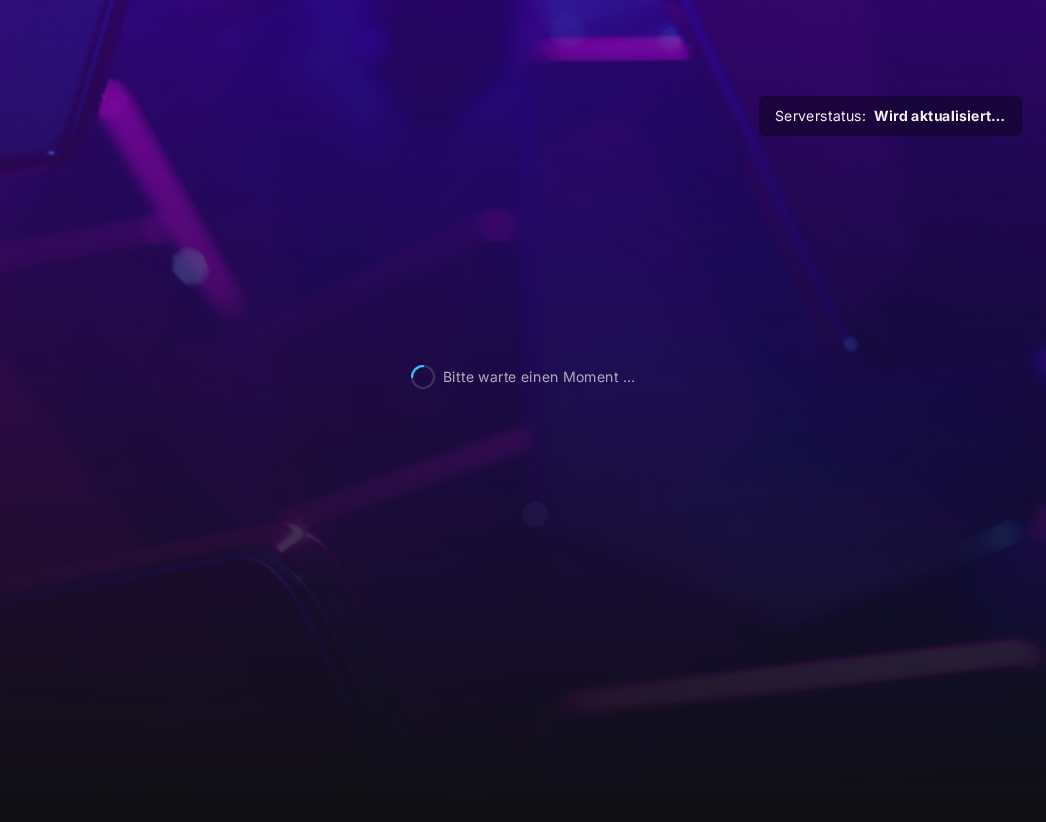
%!PS
<< /PageSize [1046 822] /PageUsesTransparency true >> setpagedevice
/alpha { dup .setfillconstantalpha .setstrokeconstantalpha } def
/roundrect { 5 dict begin { /r /h /w /y /x } { exch def } forall
  x r add y moveto x w add y 2 copy h add r arct x w add y h add x 1 index r arct
  x y h add x y r arct x y 2 copy exch w add exch r arct closepath end } def
/picture { 5 dict begin { /h /w /y /x /name } { exch def } forall
  gsave x y translate w h scale
  w h 8 [w 0 0 h 0 0] name (r) file false 3 colorimage grestore end } def
0 .pushpdf14devicefilter
0 822 translate 1 -1 scale
4 setmiterlimit
0.063 0.063 0.078 setrgbcolor
0 0 1046 822 rectfill
(img1.rgb) 0 0 1046 795 picture
0.35 alpha
0 setgray
759 96 263 40 6 roundrect fill
/Inter-Regular [14 0 0 -14 0 0] selectfont
1 alpha
0.957 0.949 0.961 setrgbcolor
775 121 moveto 0.25 0 (Serverstatus:) ashow
/Inter-Bold [14 0 0 -14 0 0] selectfont
874 121 moveto 0.25 0 (Wird aktualisiert…) ashow
0.15 alpha
1 setgray
2 setlinewidth
newpath 423 377 11 0 360 arc closepath stroke
1 alpha
0.2 0.749 1 setrgbcolor
1 setlinecap
newpath 412 377 moveto 412 371 417 366 423 366 curveto stroke
/Inter-Regular [14 0 0 -14 0 0] selectfont
0.69 0.667 0.753 setrgbcolor
443 382 moveto 0.25 0 (Bitte warte einen Moment …) ashow
.poppdf14devicefilter showpage
